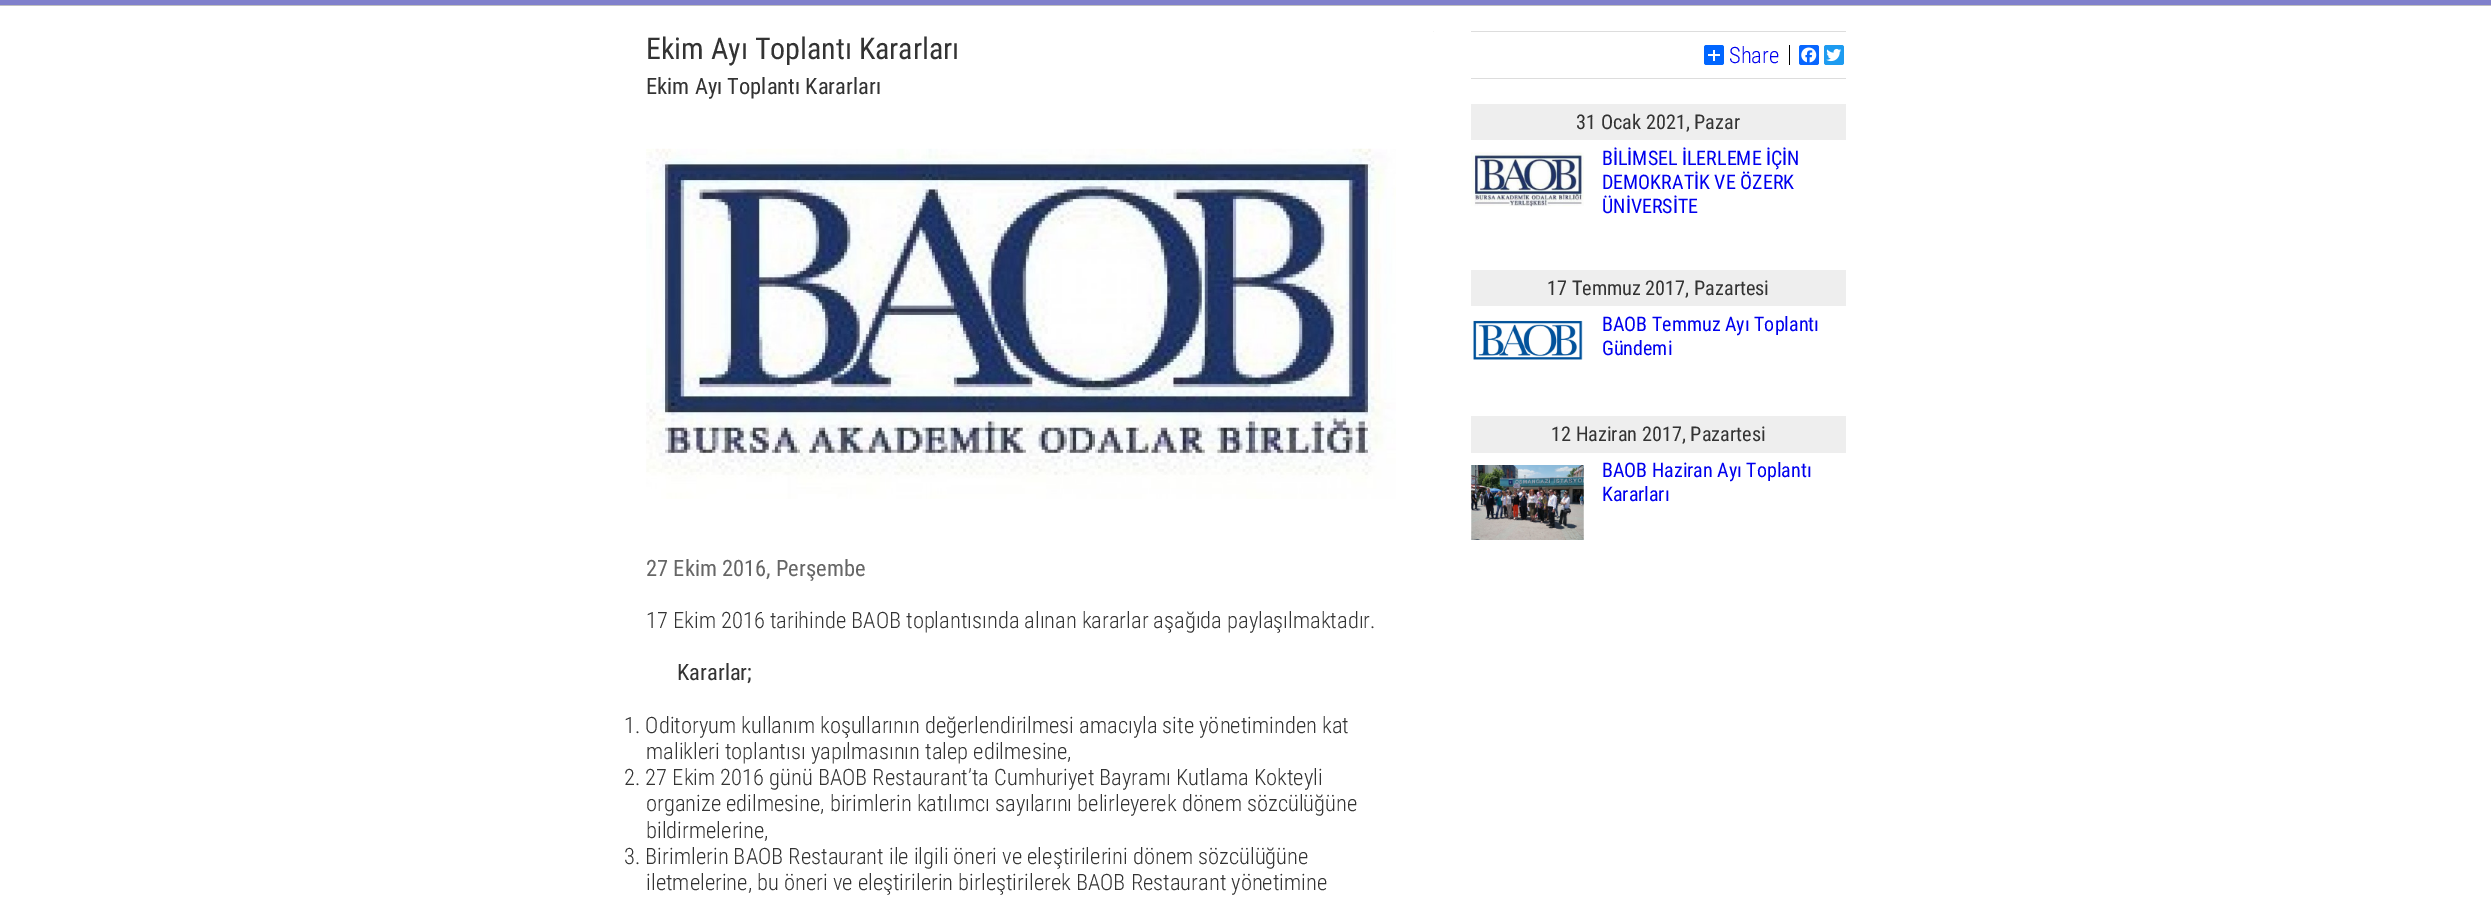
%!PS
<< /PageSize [2491 909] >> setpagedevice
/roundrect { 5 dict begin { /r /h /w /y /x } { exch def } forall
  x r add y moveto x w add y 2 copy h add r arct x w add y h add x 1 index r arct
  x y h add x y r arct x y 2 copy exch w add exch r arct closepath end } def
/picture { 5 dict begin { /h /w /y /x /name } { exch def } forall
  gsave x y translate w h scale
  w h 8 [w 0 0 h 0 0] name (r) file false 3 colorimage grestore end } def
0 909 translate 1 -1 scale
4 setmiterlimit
1 setgray
0 0 2491 909 rectfill
0.502 0.502 0.8 setrgbcolor
0 0 2491 5 rectfill
0.753 setgray
0 5 2491 1 rectfill
0.961 setgray
1433 31 1 1 rectfill
/RobotoCondensed-Regular [30 0 0 -30 0 0] selectfont
0.2 setgray
646 59 moveto (Ekim Ayı Toplantı Kararları) show
/RobotoCondensed-Regular [22.5 0 0 -22.5 0 0] selectfont
646 94 moveto (Ekim Ayı Toplantı Kararları) show
(img1.rgb) 646 148 750 351 picture
0.4 setgray
646 576 moveto (27 Ekim 2016, Perşembe) show
/RobotoCondensed-Light [22.5 0 0 -22.5 0 0] selectfont
0.2 setgray
646 628 moveto (17 Ekim 2016 tarihinde BAOB toplantısında alınan kararlar aşağıda paylaşılmaktadır.) show
/RobotoCondensed-Regular [22.5 0 0 -22.5 0 0] selectfont
677 680 moveto (Kararlar;) show
/RobotoCondensed-Light [22.5 0 0 -22.5 0 0] selectfont
624 733 moveto (1. Oditoryum kullanım koşullarının değerlendirilmesi amacıyla site yönetiminden kat) show
646 759 moveto (malikleri toplantısı yapılmasının talep edilmesine,) show
624 785 moveto (2. 27 Ekim 2016 günü BAOB Restaurant’ta Cumhuriyet Bayramı Kutlama Kokteyli) show
646 811 moveto (organize edilmesine, birimlerin katılımcı sayılarını belirleyerek dönem sözcülüğüne) show
646 838 moveto (bildirmelerine,) show
624 864 moveto (3. Birimlerin BAOB Restaurant ile ilgili öneri ve eleştirilerini dönem sözcülüğüne) show
646 890 moveto (iletmelerine, bu öneri ve eleştirilerin birleştirilerek BAOB Restaurant yönetimine) show
0.867 setgray
1471 31 375 1 rectfill
0.004 0.4 1 setrgbcolor
1704 45 20 20 2.5 roundrect fill
1 setgray
1713 50 2 11 rectfill
1708 54 12 2 rectfill
0 0 0.933 setrgbcolor
1729 63 moveto (Share) show
0 setgray
1789 45 1 20 rectfill
0.031 0.4 1 setrgbcolor
1799 45 20 20 2.5 roundrect fill
(img2.rgb) 1801 47 16 16 picture
0.114 0.608 0.941 setrgbcolor
1824 45 20 20 2.5 roundrect fill
(img3.rgb) 1826 48 16 14 picture
0.867 setgray
1471 78 375 1 rectfill
0.933 setgray
1471 104 375 36 rectfill
/RobotoCondensed-Regular [20.25 0 0 -20.25 0 0] selectfont
0.2 setgray
1576 129 moveto (31 Ocak 2021, Pazar) show
(img4.rgb) 1471 152 113 55 picture
/RobotoCondensed-Regular [20 0 0 -20 0 0] selectfont
0 0 0.933 setrgbcolor
1602 165 moveto (BİLİMSEL İLERLEME İÇİN) show
1602 189 moveto (DEMOKRATİK VE ÖZERK) show
1602 213 moveto (ÜNİVERSİTE) show
0.933 setgray
1471 270 375 36 rectfill
/RobotoCondensed-Regular [20.25 0 0 -20.25 0 0] selectfont
0.2 setgray
1547 295 moveto (17 Temmuz 2017, Pazartesi) show
(img5.rgb) 1473 320 110 40 picture
/RobotoCondensed-Regular [20 0 0 -20 0 0] selectfont
0 0 0.933 setrgbcolor
1602 331 moveto (BAOB Temmuz Ayı Toplantı) show
1602 355 moveto (Gündemi) show
0.933 setgray
1471 416 375 37 rectfill
/RobotoCondensed-Regular [20.25 0 0 -20.25 0 0] selectfont
0.2 setgray
1551 441 moveto (12 Haziran 2017, Pazartesi) show
(img6.rgb) 1471 465 113 75 picture
/RobotoCondensed-Regular [20 0 0 -20 0 0] selectfont
0 0 0.933 setrgbcolor
1602 477 moveto (BAOB Haziran Ayı Toplantı) show
1602 501 moveto (Kararları) show
showpage
